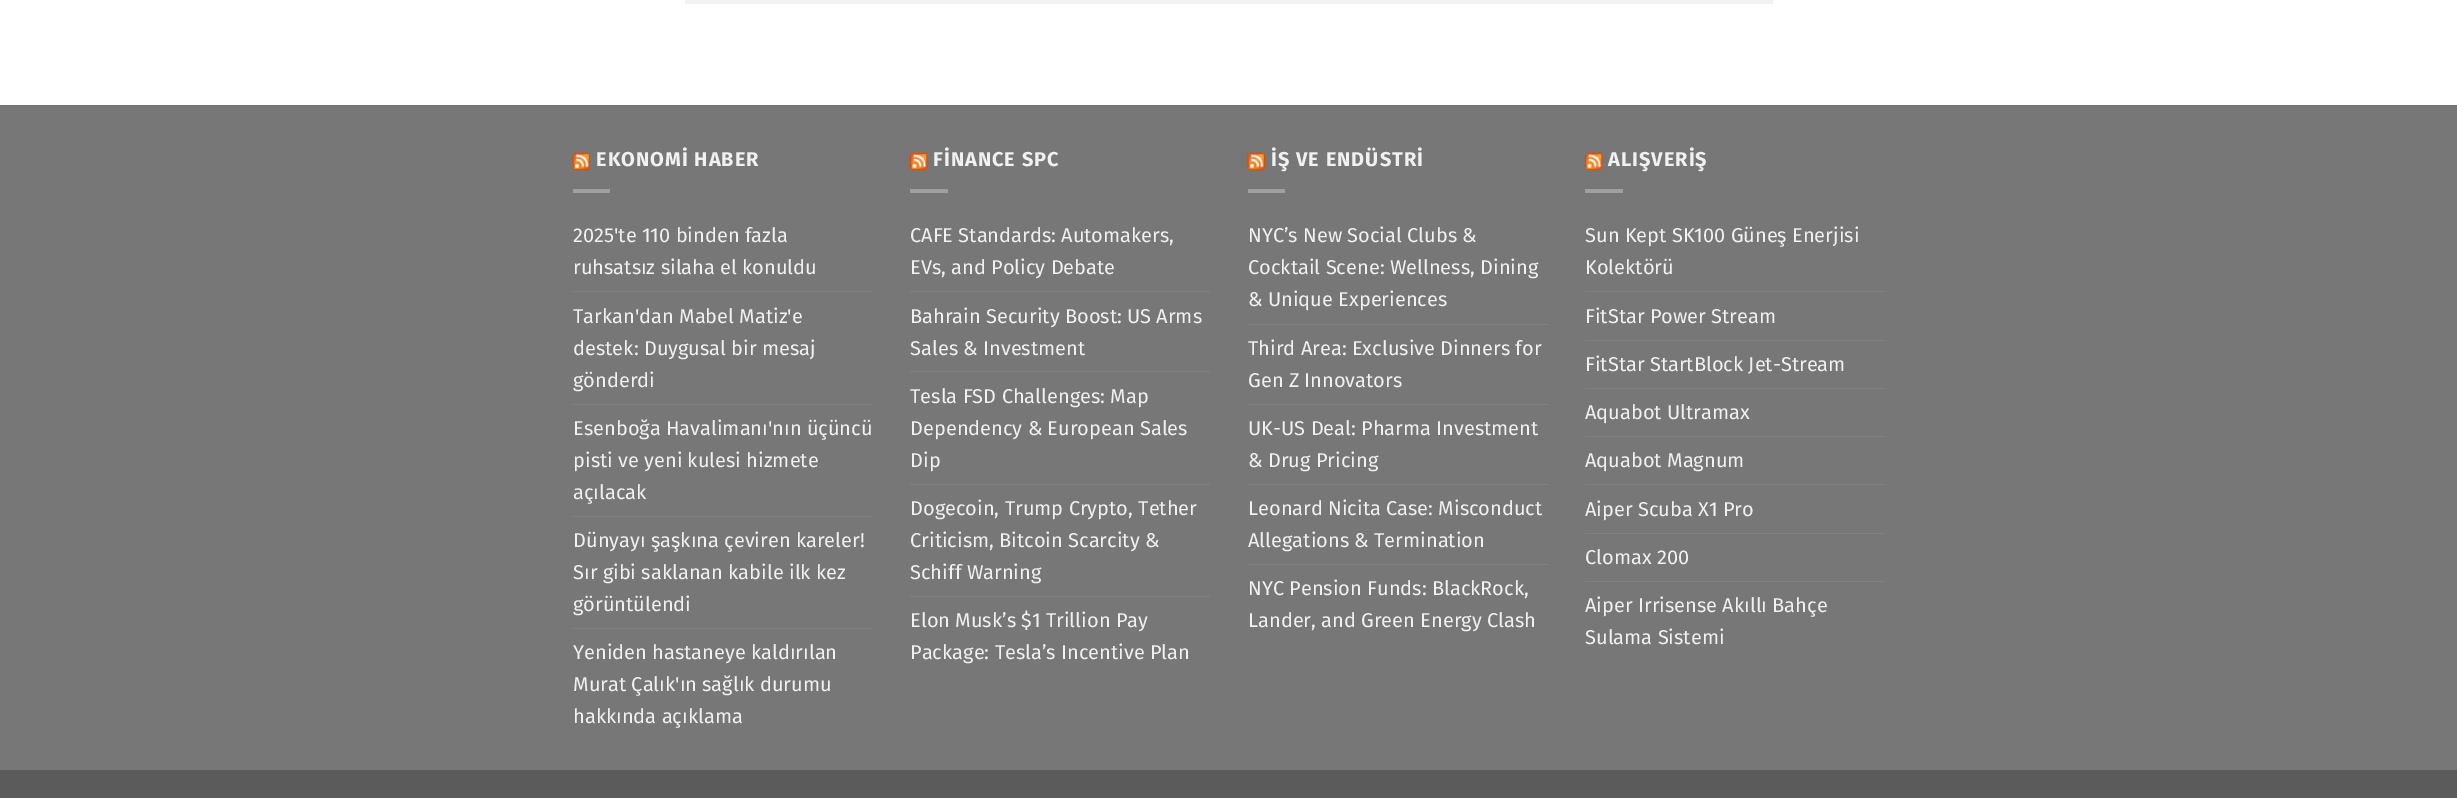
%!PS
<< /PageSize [2457 798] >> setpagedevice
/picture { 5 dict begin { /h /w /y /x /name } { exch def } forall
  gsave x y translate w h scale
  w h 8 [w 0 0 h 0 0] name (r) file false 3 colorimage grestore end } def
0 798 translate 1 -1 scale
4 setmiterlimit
1 setgray
0 0 2457 798 rectfill
0.949 setgray
685 0 1088 4 rectfill
0.467 setgray
0 106 2457 664 rectfill
0.443 setgray
0 105 2457 1 rectfill
(img1.rgb) 572 152 18 19 picture
/FiraSans-Bold [20 0 0 -20 0 0] selectfont
0.945 setgray
596 166 moveto 1 0 (EKONOMİ HABER) ashow
0.627 setgray
573 189 37 4 rectfill
/FiraSans-Regular [20 0 0 -20 0 0] selectfont
0.945 setgray
573 242 moveto (2025'te 110 binden fazla) show
573 274 moveto (ruhsatsız silaha el konuldu) show
0.51 setgray
573 291 300 1 rectfill
0.945 setgray
573 323 moveto (Tarkan'dan Mabel Matiz'e) show
573 355 moveto (destek: Duygusal bir mesaj) show
573 387 moveto (gönderdi) show
0.51 setgray
573 404 300 1 rectfill
0.945 setgray
573 435 moveto (Esenboğa Havalimanı'nın üçüncü) show
573 467 moveto (pisti ve yeni kulesi hizmete) show
573 499 moveto (açılacak) show
0.51 setgray
573 516 300 1 rectfill
0.945 setgray
573 547 moveto (Dünyayı şaşkına çeviren kareler!) show
573 579 moveto (Sır gibi saklanan kabile ilk kez) show
573 611 moveto (görüntülendi) show
0.51 setgray
573 628 300 1 rectfill
0.945 setgray
573 659 moveto (Yeniden hastaneye kaldırılan) show
573 691 moveto (Murat Çalık'ın sağlık durumu) show
573 723 moveto (hakkında açıklama) show
(img2.rgb) 910 152 18 19 picture
/FiraSans-Bold [20 0 0 -20 0 0] selectfont
933 166 moveto 1 0 (FİNANCE SPC) ashow
0.627 setgray
910 189 38 4 rectfill
/FiraSans-Regular [20 0 0 -20 0 0] selectfont
0.945 setgray
910 242 moveto (CAFE Standards: Automakers,) show
910 274 moveto (EVs, and Policy Debate) show
0.51 setgray
910 291 300 1 rectfill
0.945 setgray
910 323 moveto (Bahrain Security Boost: US Arms) show
910 355 moveto (Sales & Investment) show
0.51 setgray
910 371 300 1 rectfill
0.945 setgray
910 403 moveto (Tesla FSD Challenges: Map) show
910 435 moveto (Dependency & European Sales) show
910 467 moveto (Dip) show
0.51 setgray
910 484 300 1 rectfill
0.945 setgray
910 515 moveto (Dogecoin, Trump Crypto, Tether) show
910 547 moveto (Criticism, Bitcoin Scarcity &) show
910 579 moveto (Schiff Warning) show
0.51 setgray
910 596 300 1 rectfill
0.945 setgray
910 627 moveto (Elon Musk’s $1 Trillion Pay) show
910 659 moveto (Package: Tesla’s Incentive Plan) show
(img3.rgb) 1247 152 18 19 picture
/FiraSans-Bold [20 0 0 -20 0 0] selectfont
1271 166 moveto 1 0 (İŞ VE ENDÜSTRİ) ashow
0.627 setgray
1248 189 37 4 rectfill
/FiraSans-Regular [20 0 0 -20 0 0] selectfont
0.945 setgray
1248 242 moveto (NYC’s New Social Clubs &) show
1248 274 moveto (Cocktail Scene: Wellness, Dining) show
1248 306 moveto (& Unique Experiences) show
0.51 setgray
1248 324 300 1 rectfill
0.945 setgray
1248 355 moveto (Third Area: Exclusive Dinners for) show
1248 387 moveto (Gen Z Innovators) show
0.51 setgray
1248 404 300 1 rectfill
0.945 setgray
1248 435 moveto (UK-US Deal: Pharma Investment) show
1248 467 moveto (& Drug Pricing) show
0.51 setgray
1248 484 300 1 rectfill
0.945 setgray
1248 515 moveto (Leonard Nicita Case: Misconduct) show
1248 547 moveto (Allegations & Termination) show
0.51 setgray
1248 564 300 1 rectfill
0.945 setgray
1248 595 moveto (NYC Pension Funds: BlackRock,) show
1248 627 moveto (Lander, and Green Energy Clash) show
(img2.rgb) 1585 152 18 19 picture
/FiraSans-Bold [20 0 0 -20 0 0] selectfont
1608 166 moveto 1 0 (ALIŞVERİŞ) ashow
0.627 setgray
1585 189 38 4 rectfill
/FiraSans-Regular [20 0 0 -20 0 0] selectfont
0.945 setgray
1585 242 moveto (Sun Kept SK100 Güneş Enerjisi) show
1585 274 moveto (Kolektörü) show
0.51 setgray
1585 291 300 1 rectfill
0.945 setgray
1585 323 moveto (FitStar Power Stream) show
0.51 setgray
1585 340 300 1 rectfill
0.945 setgray
1585 371 moveto (FitStar StartBlock Jet-Stream) show
0.51 setgray
1585 388 300 1 rectfill
0.945 setgray
1585 419 moveto (Aquabot Ultramax) show
0.51 setgray
1585 436 300 1 rectfill
0.945 setgray
1585 467 moveto (Aquabot Magnum) show
0.51 setgray
1585 484 300 1 rectfill
0.945 setgray
1585 516 moveto (Aiper Scuba X1 Pro) show
0.51 setgray
1585 533 300 1 rectfill
0.945 setgray
1585 564 moveto (Clomax 200) show
0.51 setgray
1585 581 300 1 rectfill
0.945 setgray
1585 612 moveto (Aiper Irrisense Akıllı Bahçe) show
1585 644 moveto (Sulama Sistemi) show
0.357 setgray
0 770 2457 28 rectfill
showpage
